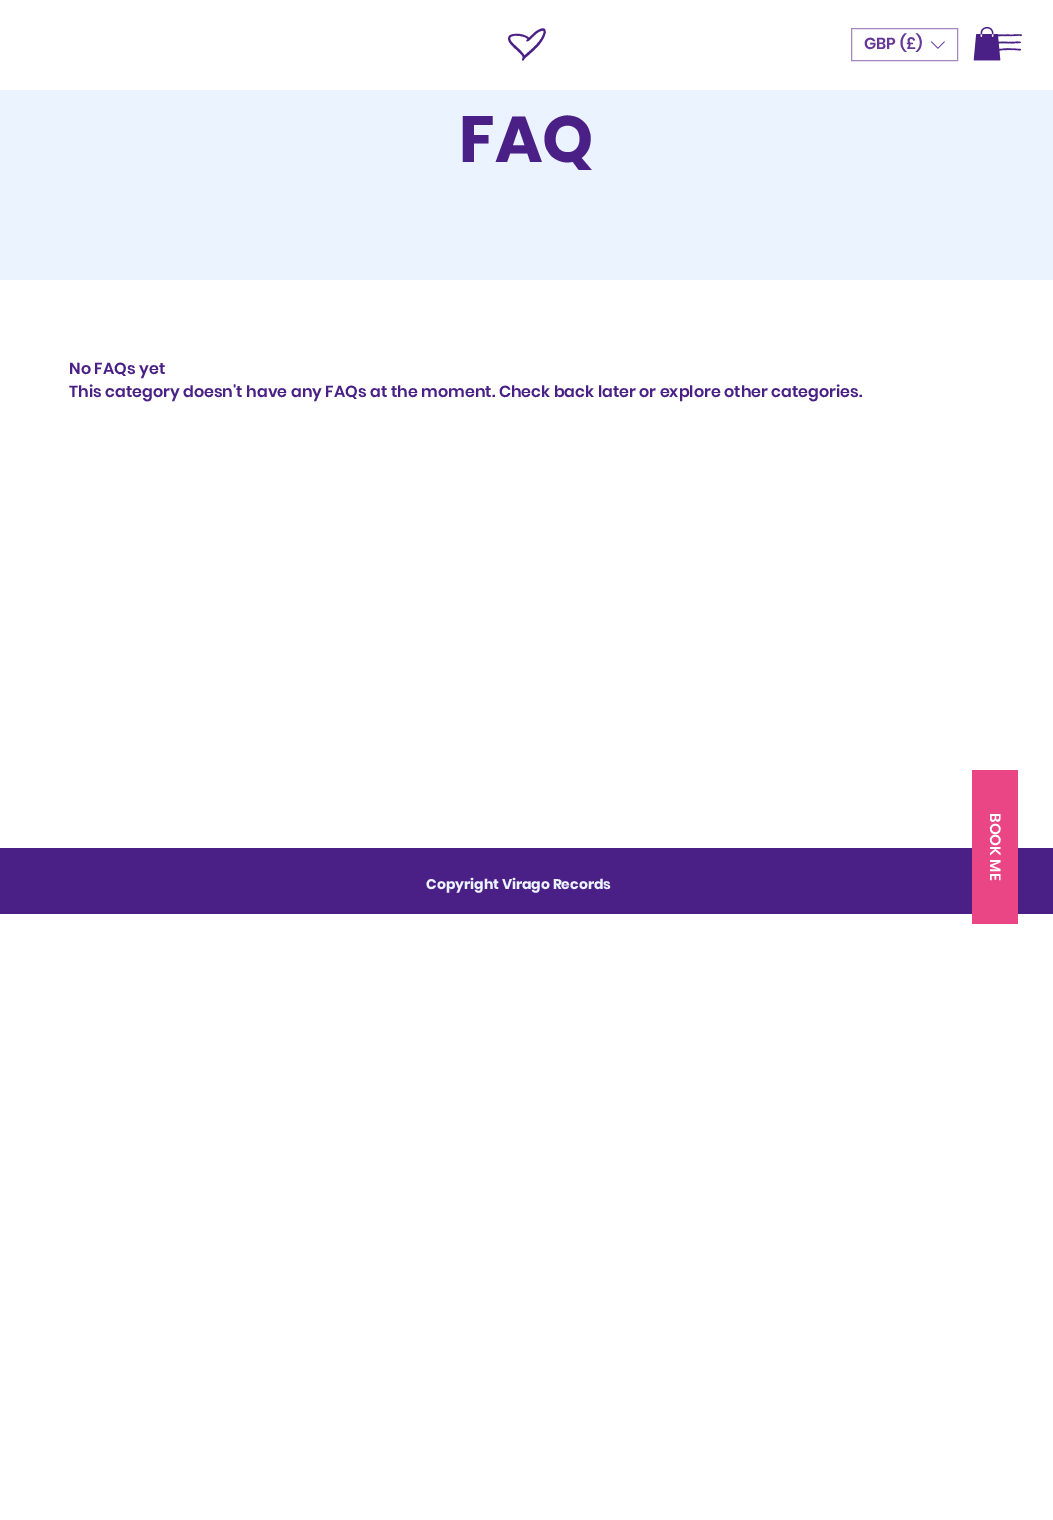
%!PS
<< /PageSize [1053 1520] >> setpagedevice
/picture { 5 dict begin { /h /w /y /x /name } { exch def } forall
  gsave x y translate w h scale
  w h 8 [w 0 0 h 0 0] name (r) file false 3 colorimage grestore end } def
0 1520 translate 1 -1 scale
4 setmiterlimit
1 setgray
0 0 1053 1520 rectfill
(img1.rgb) 508 28 38 33 picture
0.639 0.533 0.757 setrgbcolor
851.5 28.5 106 32 rectstroke
/Poppins-SemiBold [16 0 0 -16 0 0] selectfont
0.4 0.22 0.596 setrgbcolor
864 49 moveto (GBP \(£\)) show
(img2.rgb) 930 41 15 8 picture
(img3.rgb) 973 27 28 34 picture
(img4.rgb) 997 34 25 17 picture
0.918 0.953 1 setrgbcolor
0 90 1053 190 rectfill
/Poppins-Bold [65 0 0 -65 0 0] selectfont
0.294 0.125 0.525 setrgbcolor
459 162 moveto (FAQ) show
/Poppins-SemiBold [16 0 0 -16 0 0] selectfont
69 374 moveto (No FAQs yet) show
69 397 moveto (This category doesn't have any FAQs at the moment. Check back later or explore other categories.) show
0 848 1053 66 rectfill
0.918 0.275 0.525 setrgbcolor
972 770 46 154 rectfill
/Poppins-SemiBold [15 0 0 -15 0 0] selectfont
1 setgray
gsave 990 813 translate 90 rotate 0 0 moveto (BOOK ME) show grestore
/Poppins-Bold [14 0 0 -14 0 0] selectfont
0.918 0.953 1 setrgbcolor
426 889 moveto (Copyright Virago Records) show
showpage
